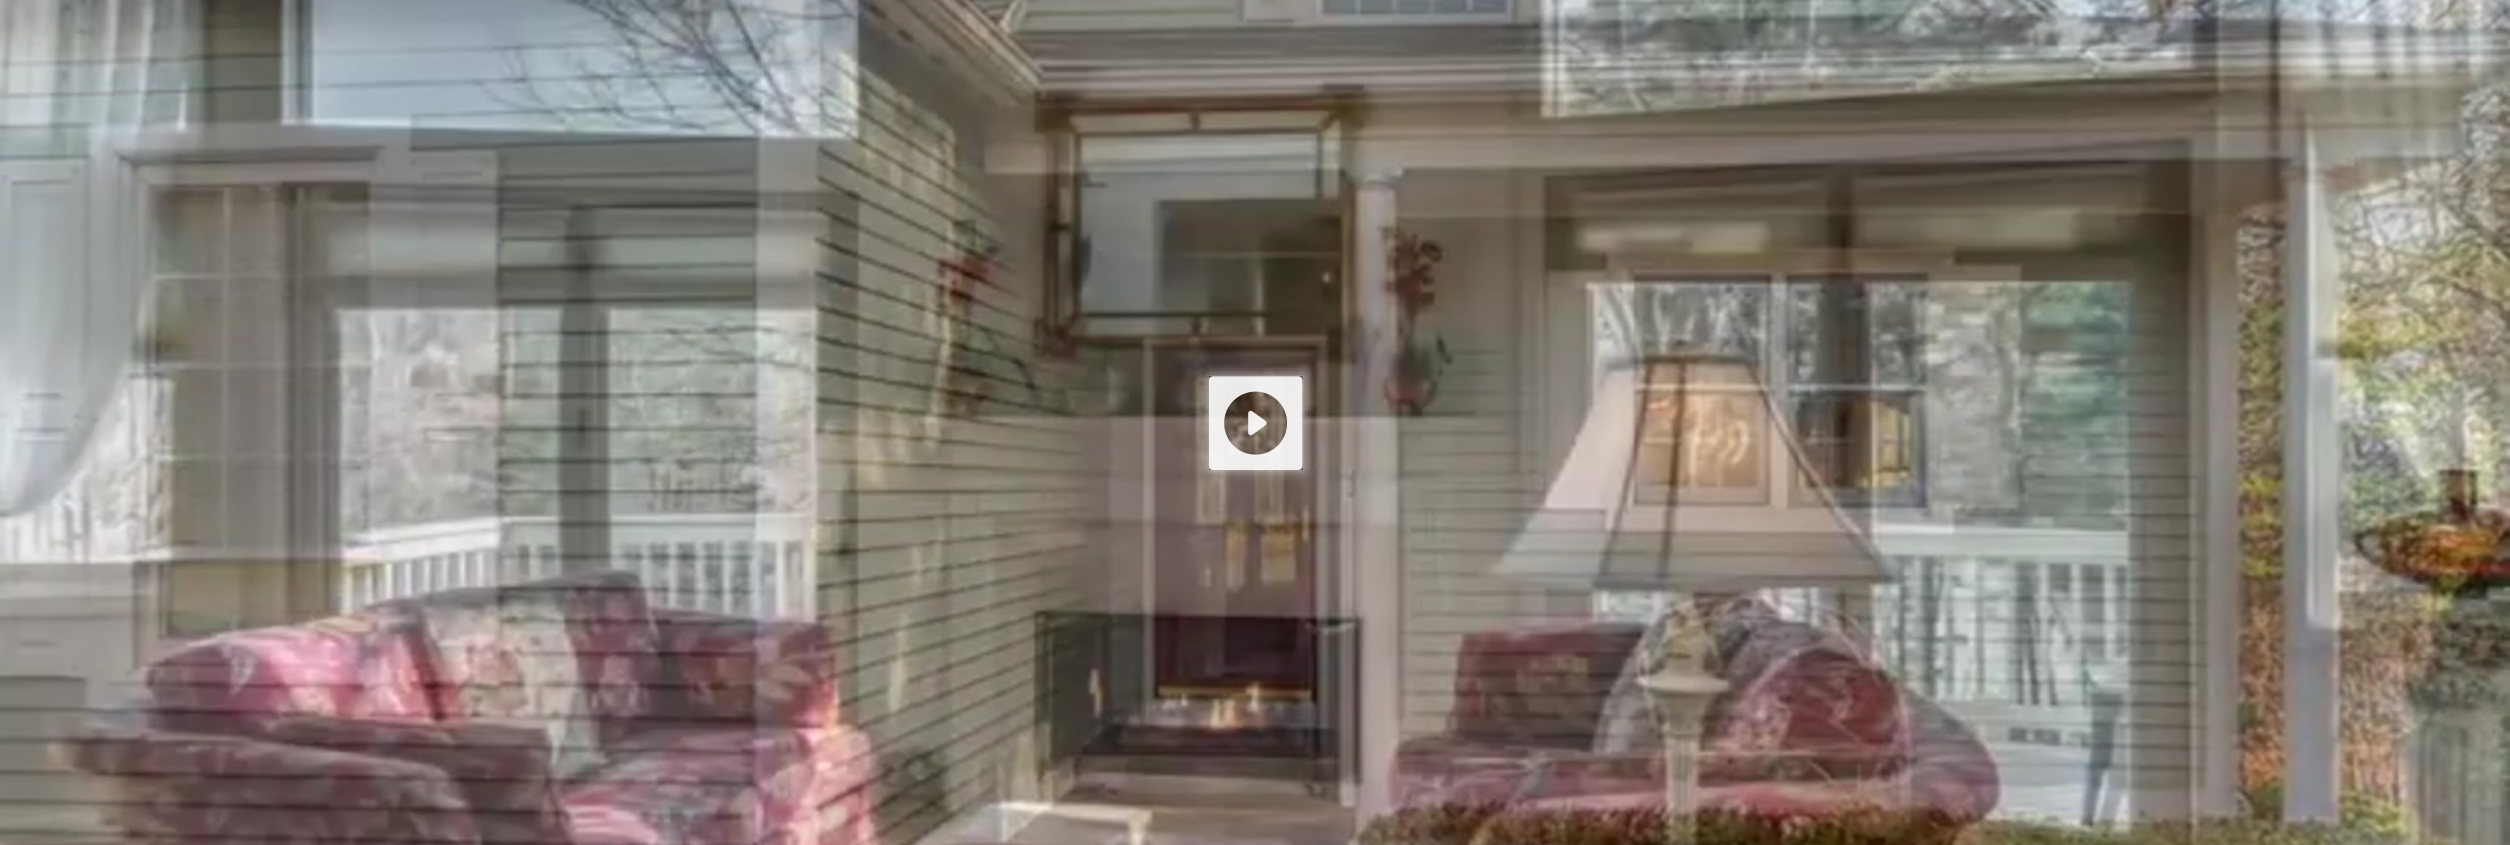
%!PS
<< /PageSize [2510 845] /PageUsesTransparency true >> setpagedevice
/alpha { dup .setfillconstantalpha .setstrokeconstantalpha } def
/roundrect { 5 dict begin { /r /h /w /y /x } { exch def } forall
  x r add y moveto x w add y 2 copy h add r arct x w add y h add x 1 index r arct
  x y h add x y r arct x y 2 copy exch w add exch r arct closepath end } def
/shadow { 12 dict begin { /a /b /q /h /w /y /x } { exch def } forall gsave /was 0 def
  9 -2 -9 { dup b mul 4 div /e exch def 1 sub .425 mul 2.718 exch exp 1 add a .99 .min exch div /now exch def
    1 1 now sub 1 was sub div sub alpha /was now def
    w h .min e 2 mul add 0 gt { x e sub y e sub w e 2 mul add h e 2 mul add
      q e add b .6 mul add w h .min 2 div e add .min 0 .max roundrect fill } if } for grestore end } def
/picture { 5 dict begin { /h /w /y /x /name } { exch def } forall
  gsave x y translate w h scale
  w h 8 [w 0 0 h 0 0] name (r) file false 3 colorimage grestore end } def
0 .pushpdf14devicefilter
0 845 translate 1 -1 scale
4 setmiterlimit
1 setgray
0 0 2510 845 rectfill
(img1.rgb) 0 0 2510 845 picture
gsave
newpath 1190 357 moveto 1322 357 lineto 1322 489 lineto 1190 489 lineto closepath 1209 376 moveto 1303 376 lineto 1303 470 lineto 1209 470 lineto closepath eoclip newpath
0.8 setgray
1209 376 94 94 0 6 1 shadow
grestore
0.1 alpha
0 setgray
1209 376 94 94 rectfill
1 alpha
(img2.rgb) 1209 376 94 94 picture
.poppdf14devicefilter showpage
